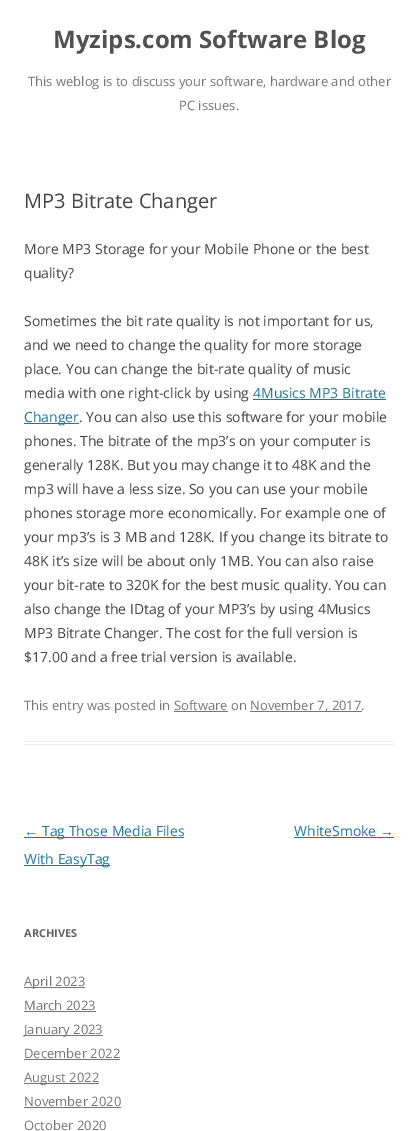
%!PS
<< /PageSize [418 1131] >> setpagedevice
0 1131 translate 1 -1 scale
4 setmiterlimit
1 setgray
0 0 418 1131 rectfill
/OpenSans-Bold [24 0 0 -24 0 0] selectfont
0.318 setgray
53 48 moveto (Myzips.com Software Blog) show
/OpenSans-Regular [13 0 0 -13 0 0] selectfont
0.459 setgray
28 86 moveto (This weblog is to discuss your software, hardware and other) show
179 110 moveto (PC issues.) show
0.929 setgray
24 741 370 1 rectfill
24 744 370 1 rectfill
/OpenSans-Regular [20 0 0 -20 0 0] selectfont
0.267 setgray
24 208 moveto (MP3 Bitrate Changer) show
/OpenSans-Regular [14 0 0 -14 0 0] selectfont
24 254 moveto (More MP3 Storage for your Mobile Phone or the best) show
24 278 moveto (quality?) show
24 326 moveto (Sometimes the bit rate quality is not important for us,) show
24 350 moveto (and we need to change the quality for more storage) show
24 374 moveto (place. You can change the bit-rate quality of music) show
24 398 moveto (media with one right-click by using) show
0.129 0.459 0.608 setrgbcolor
253 398 moveto (4Musics MP3 Bitrate) show
253 399 133 1 rectfill
24 423 55 1 rectfill
24 422 moveto (Changer) show
0.267 setgray
79 422 moveto (. You can also use this software for your mobile) show
24 446 moveto (phones. The bitrate of the mp3’s on your computer is) show
24 470 moveto (generally 128K. But you may change it to 48K and the) show
24 494 moveto (mp3 will have a less size. So you can use your mobile) show
24 518 moveto (phones storage more economically. For example one of) show
24 542 moveto (your mp3’s is 3 MB and 128K. If you change its bitrate to) show
24 566 moveto (48K it’s size will be about only 1MB. You can also raise) show
24 590 moveto (your bit-rate to 320K for the best music quality. You can) show
24 614 moveto (also change the IDtag of your MP3’s by using 4Musics) show
24 638 moveto (MP3 Bitrate Changer. The cost for the full version is) show
24 662 moveto ($17.00 and a free trial version is available.) show
/OpenSans-Regular [13 0 0 -13 0 0] selectfont
0.459 setgray
24 710 moveto (This entry was posted in Software on) show
250 711 112 1 rectfill
250 710 moveto (November 7, 2017.) show
174 711 54 1 rectfill
/LiberationSans-Regular [14 0 0 -14 0 0] selectfont
0.129 0.459 0.608 setrgbcolor
24 836 moveto (←) show
24 837 160 1 rectfill
/OpenSans-Regular [14 0 0 -14 0 0] selectfont
42 836 moveto (Tag Those Media Files) show
24 865 86 1 rectfill
24 864 moveto (With EasyTag) show
294 836 moveto (WhiteSmoke) show
/LiberationSans-Regular [14 0 0 -14 0 0] selectfont
380 836 moveto (→) show
294 837 100 1 rectfill
/OpenSans-Bold [11 0 0 -11 0 0] selectfont
0.388 setgray
24 937 moveto (ARCHIVES) show
0.459 setgray
24 987 61 1 rectfill
/OpenSans-Regular [13 0 0 -13 0 0] selectfont
24 986 moveto (April 2023) show
24 1010 moveto (March 2023) show
24 1011 72 1 rectfill
24 1035 79 1 rectfill
24 1034 moveto (January 2023) show
24 1058 moveto (December 2022) show
24 1059 96 1 rectfill
24 1083 75 1 rectfill
24 1082 moveto (August 2022) show
24 1106 moveto (November 2020) show
24 1107 97 1 rectfill
24 1130 moveto (October 2020) show
showpage
